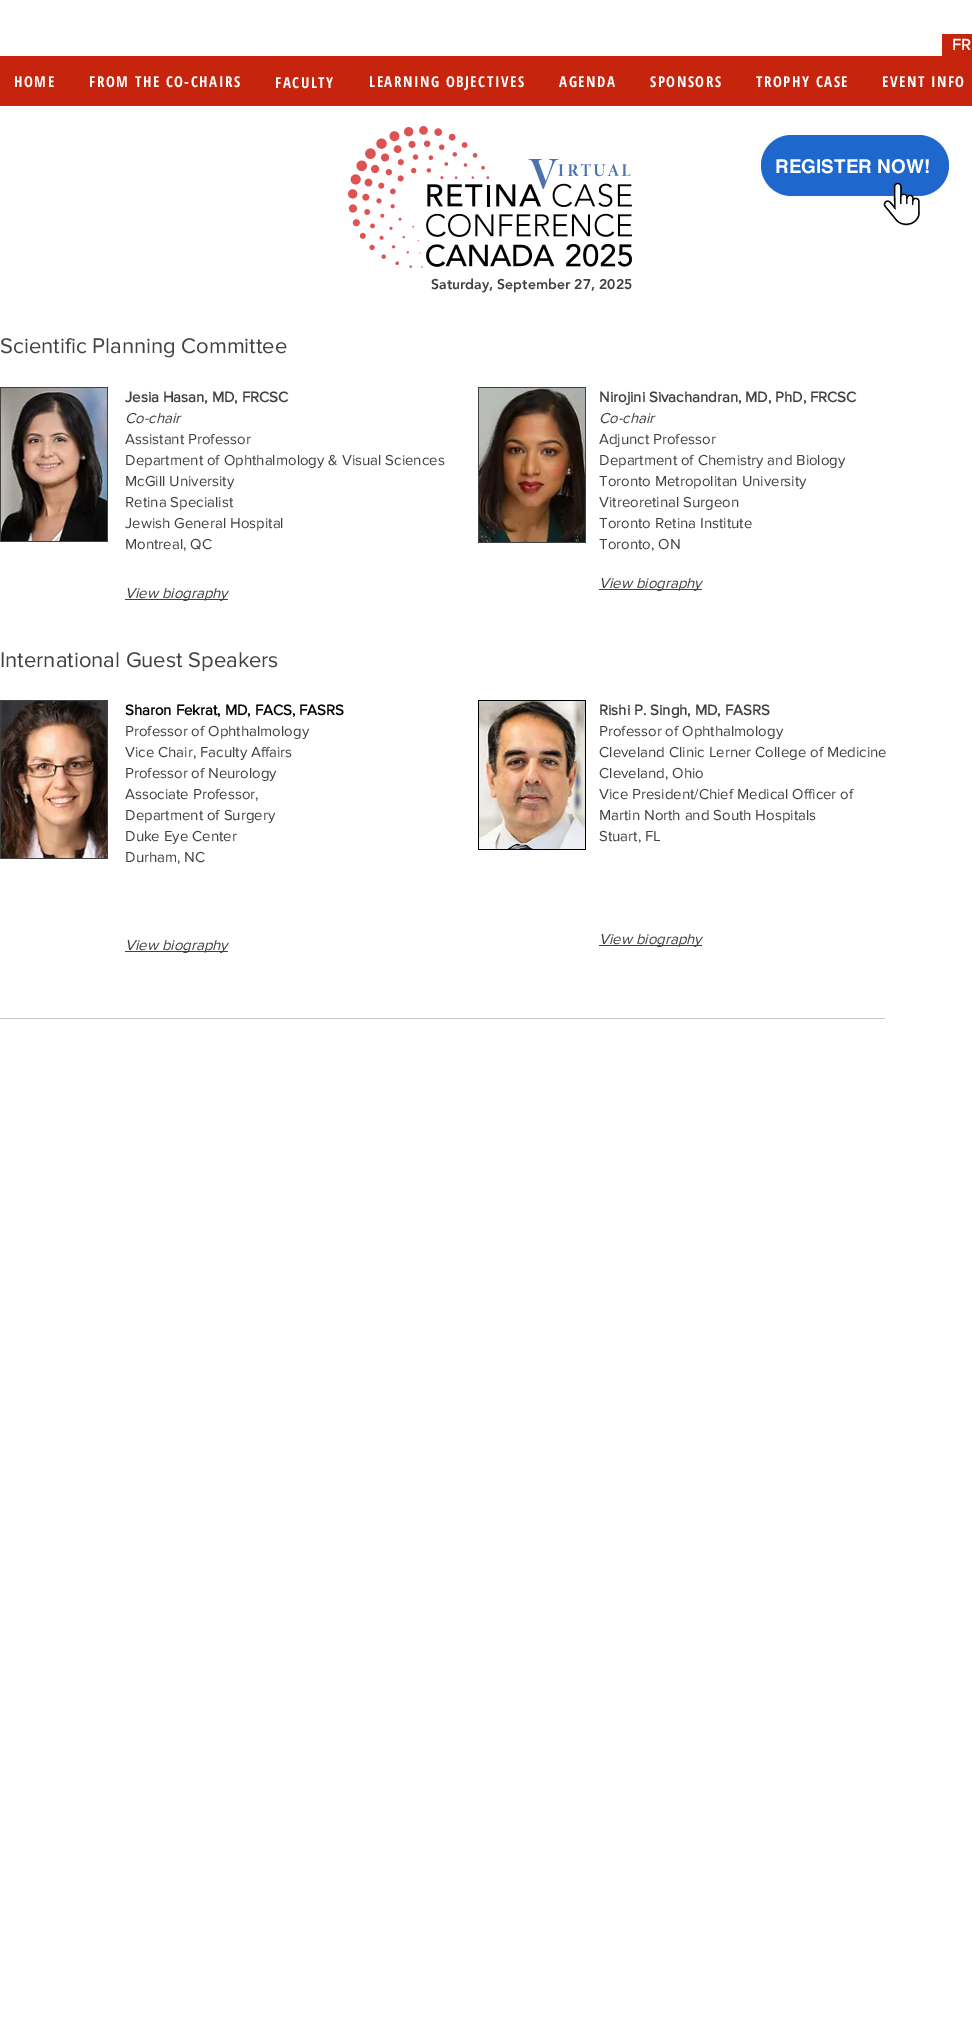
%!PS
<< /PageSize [972 2031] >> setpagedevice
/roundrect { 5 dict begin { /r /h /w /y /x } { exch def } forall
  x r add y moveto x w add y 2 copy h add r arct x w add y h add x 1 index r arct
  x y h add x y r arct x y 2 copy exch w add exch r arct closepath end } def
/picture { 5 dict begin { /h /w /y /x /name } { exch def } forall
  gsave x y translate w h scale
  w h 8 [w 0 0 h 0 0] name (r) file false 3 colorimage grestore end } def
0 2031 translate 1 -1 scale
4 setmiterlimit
1 setgray
0 0 972 2031 rectfill
0.78 0.141 0.055 setrgbcolor
942 34 30 22 rectfill
/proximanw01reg-Bold [16 0 0 -16 0 0] selectfont
1 setgray
952 50 moveto (FR) show
0.78 0.141 0.055 setrgbcolor
0 56 972 50 rectfill
/OpenSansCondensed-Bold [15 0 0 -15 0 0] selectfont
1 setgray
14 87 moveto 1.5 0 (HOME) ashow
89 87 moveto 1.5 0 (FROM THE CO-CHAIRS) ashow
0.765 0.145 0.063 setrgbcolor
newpath 262 105 moveto 262 61 lineto 263 62 lineto 263 102 lineto closepath fill
1 setgray
275 88 moveto 1.5 0 (FACULTY) ashow
369 87 moveto 1.5 0 (LEARNING OBJECTIVES) ashow
559 87 moveto 1.5 0 (AGENDA) ashow
650 87 moveto 1.5 0 (SPONSORS) ashow
756 87 moveto 1.5 0 (TROPHY CASE) ashow
882 87 moveto 1.5 0 (EVENT INFO) ashow
0.114 0.404 0.804 setrgbcolor
761 135 188 61 30.5 roundrect fill
/helvetica-Bold [19 0 0 -19 0 0] selectfont
1 setgray
775 173 moveto (REGISTER NOW!) show
(img1.rgb) 883 182 37 44 picture
(img2.rgb) 348 126 284 142 picture
/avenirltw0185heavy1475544-Black [14 0 0 -14 0 0] selectfont
0.255 setgray
431 289 moveto (Saturday, September 27, 2025) show
/proximanw01reg-Regular [22 0 0 -22 0 0] selectfont
0 353 moveto (Scientific Planning Committee) show
0 387 108 155 rectfill
(img3.rgb) 1 388 106 153 picture
/proximanw01reg-Bold [15 0 0 -15 0 0] selectfont
125 402 moveto (Jesia Hasan, MD, FRCSC) show
/proximanw01reg-Italic [15 0 0 -15 0 0] selectfont
125 423 moveto (Co-chair) show
/proximanw01reg-Regular [15 0 0 -15 0 0] selectfont
125 444 moveto (Assistant Professor) show
125 465 moveto (Department of Ophthalmology & Visual Sciences) show
125 486 moveto (McGill University) show
125 507 moveto (Retina Specialist) show
125 528 moveto (Jewish General Hospital) show
125 549 moveto (Montreal, QC) show
478 387 108 156 rectfill
(img4.rgb) 479 388 106 154 picture
/proximanw01reg-Bold [15 0 0 -15 0 0] selectfont
599 402 moveto (Nirojini Sivachandran, MD, PhD, FRCSC) show
/proximanw01reg-Italic [15 0 0 -15 0 0] selectfont
599 423 moveto (Co-chair) show
/proximanw01reg-Regular [15 0 0 -15 0 0] selectfont
599 444 moveto (Adjunct Professor) show
599 465 moveto (Department of Chemistry and Biology) show
599 486 moveto (Toronto Metropolitan University) show
599 507 moveto (Vitreoretinal Surgeon) show
599 528 moveto (Toronto Retina Institute) show
599 549 moveto (Toronto, ON) show
599 589 103 1 rectfill
/proximanw01reg-Italic [15 0 0 -15 0 0] selectfont
599 588 moveto (View biography) show
125 599 103 1 rectfill
125 598 moveto (View biography) show
/proximanw01reg-Regular [22 0 0 -22 0 0] selectfont
0 667 moveto (International Guest Speakers) show
0 700 108 159 rectfill
(img5.rgb) 1 701 106 157 picture
/proximanw01reg-Bold [15 0 0 -15 0 0] selectfont
0 setgray
125 715 moveto (Sharon Fekrat, MD, FACS, FASRS) show
/proximanw01reg-Regular [15 0 0 -15 0 0] selectfont
0.255 setgray
125 736 moveto (Professor of Ophthalmology) show
125 757 moveto (Vice Chair, Faculty Affairs) show
125 778 moveto (Professor of Neurology) show
125 799 moveto (Associate Professor,) show
125 820 moveto (Department of Surgery) show
125 841 moveto (Duke Eye Center) show
125 862 moveto (Durham, NC) show
0 setgray
478 700 108 150 rectfill
(img6.rgb) 479 701 106 148 picture
/proximanw01reg-Bold [15 0 0 -15 0 0] selectfont
0.255 setgray
599 715 moveto (Rishi P. Singh, MD, FASRS) show
/proximanw01reg-Regular [15 0 0 -15 0 0] selectfont
599 736 moveto (Professor of Ophthalmology) show
599 757 moveto (Cleveland Clinic Lerner College of Medicine) show
599 778 moveto (Cleveland, Ohio) show
599 799 moveto (Vice President/Chief Medical Officer of) show
599 820 moveto (Martin North and South Hospitals) show
599 841 moveto (Stuart, FL) show
125 951 103 1 rectfill
/proximanw01reg-Italic [15 0 0 -15 0 0] selectfont
125 950 moveto (View biography) show
599 945 103 1 rectfill
599 944 moveto (View biography) show
0.78 setgray
0 1018 885 1 rectfill
showpage
